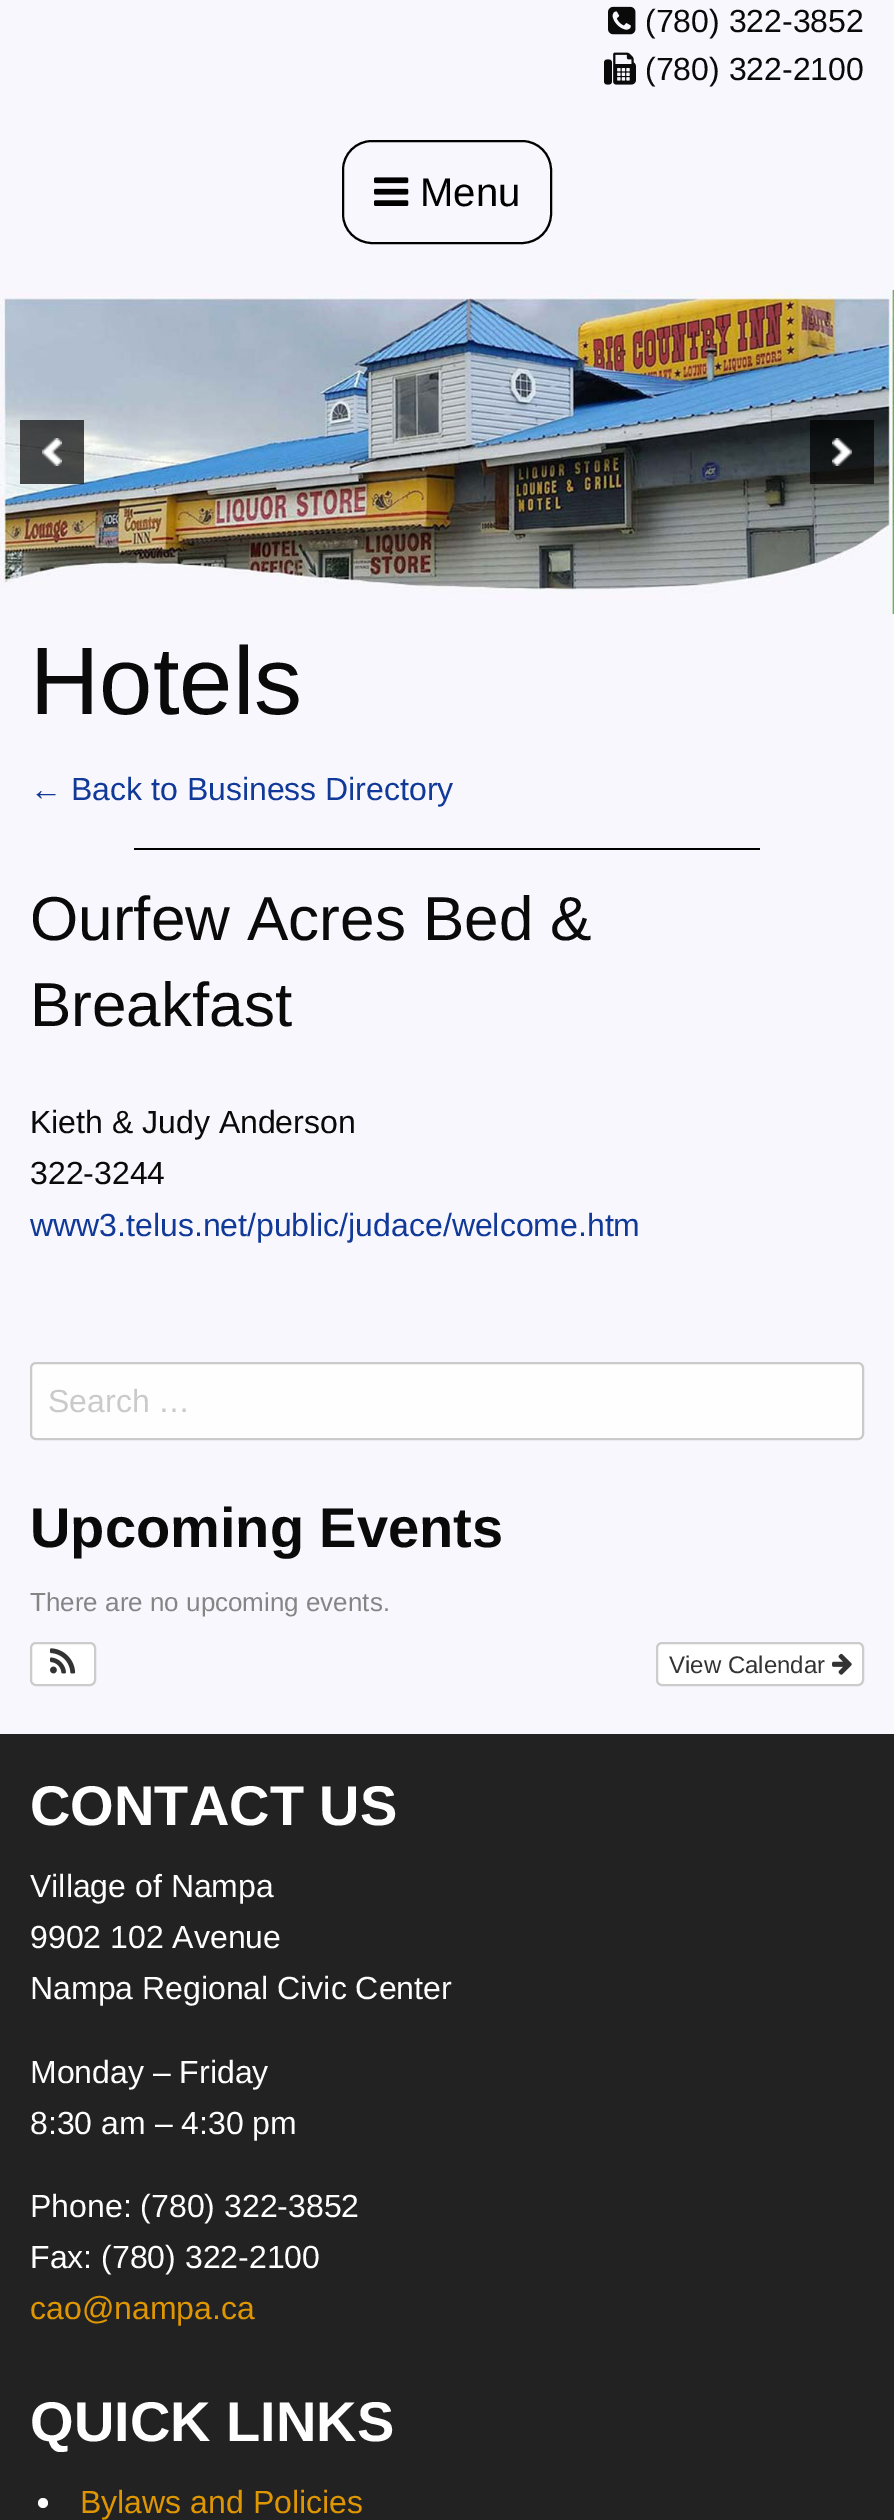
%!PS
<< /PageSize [894 2520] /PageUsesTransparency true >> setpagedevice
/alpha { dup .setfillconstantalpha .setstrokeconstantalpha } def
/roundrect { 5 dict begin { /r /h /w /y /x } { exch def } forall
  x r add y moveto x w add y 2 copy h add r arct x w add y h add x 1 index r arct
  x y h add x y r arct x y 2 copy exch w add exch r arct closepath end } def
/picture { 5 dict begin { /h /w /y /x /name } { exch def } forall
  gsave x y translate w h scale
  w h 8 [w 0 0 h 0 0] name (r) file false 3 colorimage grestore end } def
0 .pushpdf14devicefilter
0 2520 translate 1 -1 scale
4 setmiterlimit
0.973 0.969 0.992 setrgbcolor
0 0 894 2520 rectfill
(img1.rgb) 608 6 28 29 picture
/LiberationSans-Regular [32 0 0 -32 0 0] selectfont
0.039 setgray
645 32 moveto (\(780\) 322-3852) show
(img2.rgb) 604 52 32 33 picture
645 80 moveto (\(780\) 322-2100) show
0 setgray
2 setlinewidth
343 141 208 102 29 roundrect stroke
(img3.rgb) 374 177 35 29 picture
/LiberationSans-Regular [40 0 0 -40 0 0] selectfont
420 206 moveto (Menu) show
(img4.rgb) 0 290 894 324 picture
0.7 alpha
20 420 64 64 rectfill
1 alpha
(img5.rgb) 42 438 20 28 picture
0.7 alpha
810 420 64 64 rectfill
1 alpha
(img6.rgb) 832 438 20 28 picture
/LiberationSans-Regular [96 0 0 -96 0 0] selectfont
0.039 setgray
30 714 moveto (Hotels) show
/LiberationSans-Regular [32 0 0 -32 0 0] selectfont
0.063 0.224 0.596 setrgbcolor
30 800 moveto (← Back to Business Directory) show
0 setgray
134 848 626 2 rectfill
/LiberationSans-Regular [62 0 0 -62 0 0] selectfont
0.039 setgray
30 940 moveto (Ourfew Acres Bed &) show
30 1026 moveto (Breakfast) show
/LiberationSans-Regular [32 0 0 -32 0 0] selectfont
30 1133 moveto (Kieth & Judy Anderson) show
30 1184 moveto (322-3244) show
0.063 0.224 0.596 setrgbcolor
30 1236 moveto (www3.telus.net/public/judace/welcome.htm) show
0.996 setgray
31 1363 832 76 5 roundrect gsave fill grestore
0.792 setgray
stroke
48 1412 moveto (Search …) show
/LiberationSans-Bold [56 0 0 -56 0 0] selectfont
0.039 setgray
30 1547 moveto (Upcoming Events) show
/LiberationSans-Regular [26 0 0 -26 0 0] selectfont
0.522 setgray
30 1611 moveto (There are no upcoming events.) show
1 setgray
31 1643 64 42 5 roundrect gsave fill grestore
0.8 setgray
stroke
(img7.rgb) 50 1648 26 26 picture
1 setgray
657 1643 206 42 5 roundrect gsave fill grestore
0.8 setgray
stroke
/LiberationSans-Regular [24 0 0 -24 0 0] selectfont
0.2 setgray
669 1673 moveto (View Calendar) show
(img8.rgb) 832 1653 20 22 picture
0.133 setgray
0 1734 894 786 rectfill
/LiberationSans-Bold [56 0 0 -56 0 0] selectfont
0.996 setgray
30 1825 moveto (CONTACT US) show
/LiberationSans-Regular [32 0 0 -32 0 0] selectfont
30 1897 moveto (Village of Nampa) show
30 1948 moveto (9902 102 Avenue) show
30 1999 moveto (Nampa Regional Civic Center) show
30 2083 moveto (Monday – Friday) show
30 2134 moveto (8:30 am – 4:30 pm) show
30 2217 moveto (Phone: \(780\) 322-3852) show
30 2268 moveto (Fax: \(780\) 322-2100) show
0.875 0.588 0.012 setrgbcolor
30 2319 moveto (cao@nampa.ca) show
/LiberationSans-Bold [56 0 0 -56 0 0] selectfont
0.996 setgray
30 2441 moveto (QUICK LINKS) show
newpath 43 2503 5 0 360 arc closepath fill
/LiberationSans-Regular [32 0 0 -32 0 0] selectfont
0.875 0.588 0.012 setrgbcolor
80 2513 moveto (Bylaws and Policies) show
.poppdf14devicefilter showpage
